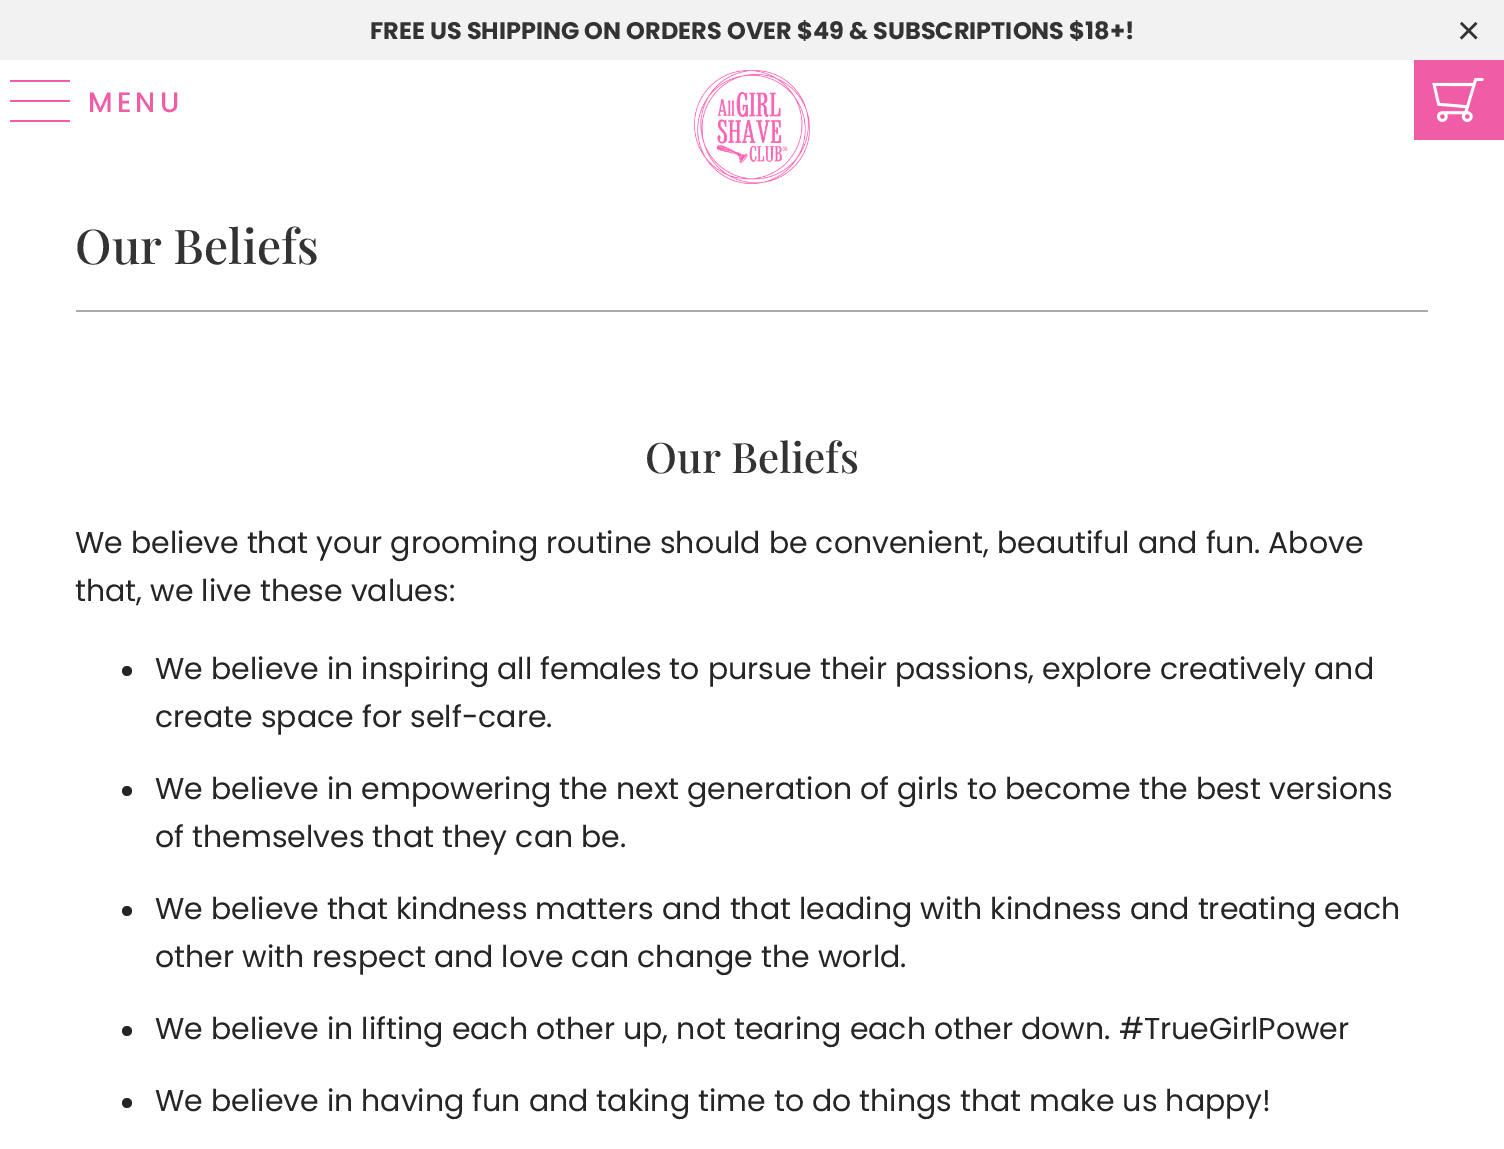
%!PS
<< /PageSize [1504 1149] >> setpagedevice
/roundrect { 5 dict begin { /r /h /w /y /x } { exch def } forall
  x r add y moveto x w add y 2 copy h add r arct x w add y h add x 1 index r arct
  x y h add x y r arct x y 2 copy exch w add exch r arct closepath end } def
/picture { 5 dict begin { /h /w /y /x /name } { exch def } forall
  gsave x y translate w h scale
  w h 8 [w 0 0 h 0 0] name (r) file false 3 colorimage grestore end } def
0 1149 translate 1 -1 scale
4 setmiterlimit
1 setgray
0 0 1504 1149 rectfill
0.949 setgray
0 0 1504 60 rectfill
/Poppins-Bold [24 0 0 -24 0 0] selectfont
0.2 setgray
370 39 moveto (FREE US SHIPPING ON ORDERS OVER $49 & SUBSCRIPTIONS $18+!) show
/LiberationSans-Regular [40 0 0 -40 0 0] selectfont
1457 44 moveto (×) show
0.937 0.365 0.651 setrgbcolor
10 80 60 2 1 roundrect fill
10 100 60 2 1 roundrect fill
10 120 60 2 1 roundrect fill
/Poppins-Medium [28 0 0 -28 0 0] selectfont
88 112 moveto 4 0 (MENU) ashow
(img1.rgb) 694 70 116 114 picture
1414 60 90 80 rectfill
(img2.rgb) 1432 78 52 44 picture
/PlayfairDisplay-SemiBold [48 0 0 -48 0 0] selectfont
0.2 setgray
75 264 moveto (Our Beliefs) show
0.667 setgray
76 310 1352 2 rectfill
/PlayfairDisplay-SemiBold [42 0 0 -42 0 0] selectfont
0.2 setgray
645 473 moveto (Our Beliefs) show
/Poppins-Regular [30 0 0 -30 0 0] selectfont
0.145 setgray
75 553 moveto (We believe that your grooming routine should be convenient, beautiful and fun. Above) show
75 601 moveto (that, we live these values:) show
newpath 127 671 5 0 360 arc closepath fill
155 679 moveto (We believe in inspiring all females to pursue their passions, explore creatively and) show
155 727 moveto (create space for self-care.) show
newpath 127 791 5 0 360 arc closepath fill
155 799 moveto (We believe in empowering the next generation of girls to become the best versions) show
155 847 moveto (of themselves that they can be.) show
newpath 127 911 5 0 360 arc closepath fill
155 919 moveto (We believe that kindness matters and that leading with kindness and treating each) show
155 967 moveto (other with respect and love can change the world.) show
newpath 127 1031 5 0 360 arc closepath fill
155 1039 moveto (We believe in lifting each other up, not tearing each other down. #TrueGirlPower) show
newpath 127 1103 5 0 360 arc closepath fill
155 1111 moveto (We believe in having fun and taking time to do things that make us happy!) show
showpage
